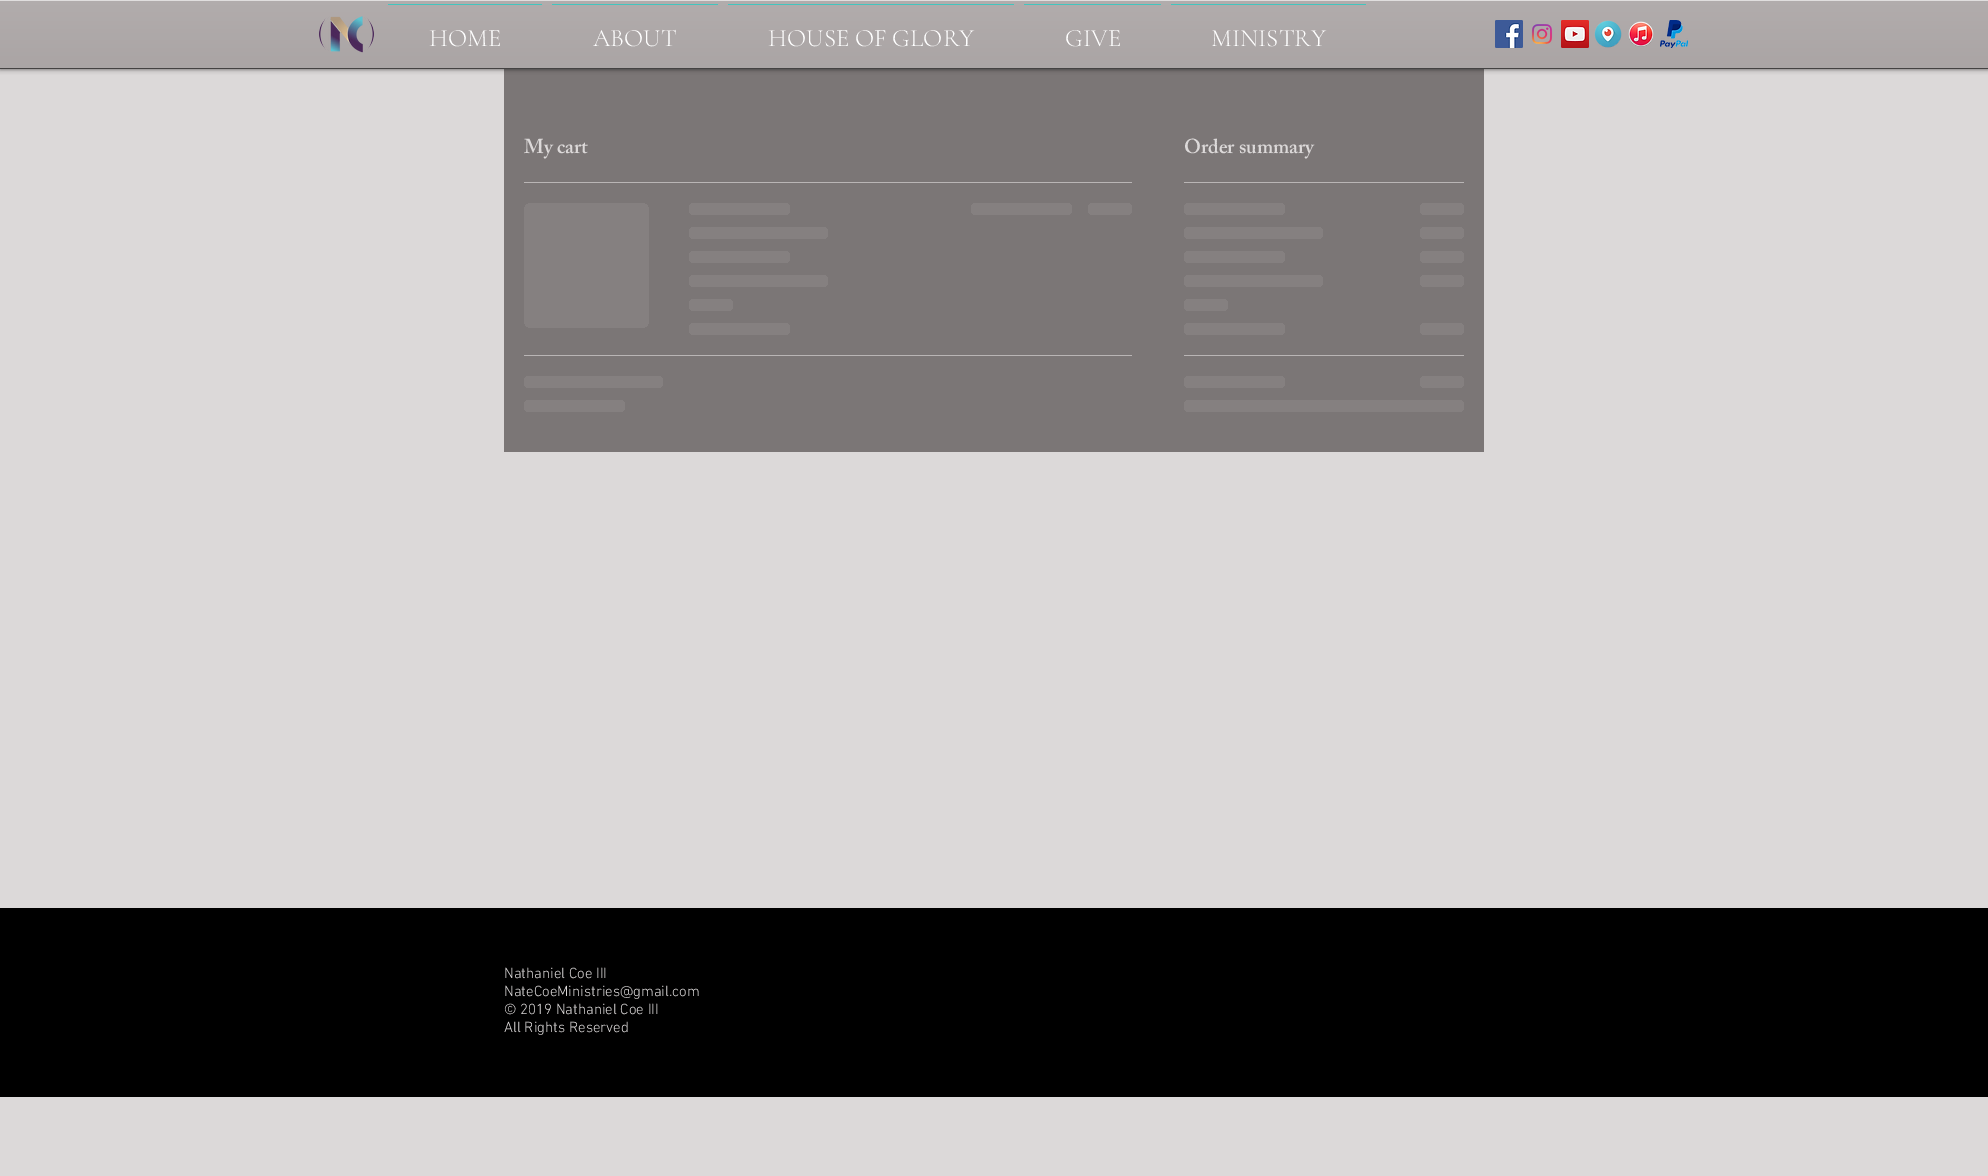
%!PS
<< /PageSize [1988 1176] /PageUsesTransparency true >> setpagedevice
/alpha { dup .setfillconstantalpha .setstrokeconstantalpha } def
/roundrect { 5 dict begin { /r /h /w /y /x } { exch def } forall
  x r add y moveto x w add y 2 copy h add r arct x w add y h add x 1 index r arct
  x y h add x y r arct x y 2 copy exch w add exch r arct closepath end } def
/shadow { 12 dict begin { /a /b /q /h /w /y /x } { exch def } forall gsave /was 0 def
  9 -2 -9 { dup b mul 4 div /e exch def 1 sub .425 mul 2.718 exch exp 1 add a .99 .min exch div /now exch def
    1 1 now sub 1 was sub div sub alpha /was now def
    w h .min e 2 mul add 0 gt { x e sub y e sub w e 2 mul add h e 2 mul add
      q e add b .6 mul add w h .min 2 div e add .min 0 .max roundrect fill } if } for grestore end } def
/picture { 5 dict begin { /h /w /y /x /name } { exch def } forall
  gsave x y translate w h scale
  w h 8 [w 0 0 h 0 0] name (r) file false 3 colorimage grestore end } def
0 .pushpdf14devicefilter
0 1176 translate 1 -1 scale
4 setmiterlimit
0.863 0.851 0.851 setrgbcolor
0 0 1988 1176 rectfill
0.482 0.463 0.463 setrgbcolor
504 69 980 383 rectfill
0 setgray
0 0 1988 69 0 2.5 0.6 shadow
0.588 0.561 0.561 setrgbcolor
0 1 1988 67 rectfill
(img1.rgb) 0 1 1988 67 picture
0.267 0.259 0.259 setrgbcolor
0 68 1988 1 rectfill
0.878 0.871 0.871 setrgbcolor
0 0 1988 1 rectfill
(img2.rgb) 319 16 55 37 picture
0.259 0.773 0.745 setrgbcolor
388 4 154 1 rectfill
/CormorantGaramond-Light [25 0 0 -25 0 0] selectfont
1 setgray
429 46 moveto (HOME) show
0.259 0.773 0.745 setrgbcolor
552 4 166 1 rectfill
1 setgray
593 46 moveto (ABOUT) show
0.259 0.773 0.745 setrgbcolor
728 4 286 1 rectfill
1 setgray
768 46 moveto (HOUSE OF GLORY) show
0.259 0.773 0.745 setrgbcolor
1024 4 137 1 rectfill
1 setgray
1065 46 moveto (GIVE) show
0.259 0.773 0.745 setrgbcolor
1171 4 195 1 rectfill
1 setgray
1211 46 moveto (MINISTRY) show
(img3.rgb) 1495 20 28 28 picture
(img4.rgb) 1531 24 22 20 picture
(img5.rgb) 1561 20 28 28 picture
(img6.rgb) 1594 20 28 28 picture
(img7.rgb) 1628 21 26 26 picture
(img8.rgb) 1660 20 28 28 picture
0.725 0.71 0.71 setrgbcolor
524 182 608 1 rectfill
/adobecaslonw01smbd-SemiBold [20 0 0 -20 0 0] selectfont
0.863 0.851 0.851 setrgbcolor
524 153 moveto (My cart) show
gsave 524 203 125 125 8 roundrect clip newpath
<< /ShadingType 2 /ColorSpace /DeviceRGB /Coords [524 266 1024 266] /Extend [true true] /Function << /FunctionType 3 /Domain [0 1] /Functions [<< /FunctionType 2 /Domain [0 1] /C0 [0.522 0.502 0.502] /C1 [0.522 0.502 0.502] /N 1 >> << /FunctionType 2 /Domain [0 1] /C0 [0.522 0.502 0.502] /C1 [0.557 0.541 0.541] /N 1 >> << /FunctionType 2 /Domain [0 1] /C0 [0.557 0.541 0.541] /C1 [0.522 0.502 0.502] /N 1 >> << /FunctionType 2 /Domain [0 1] /C0 [0.522 0.502 0.502] /C1 [0.522 0.502 0.502] /N 1 >>] /Bounds [0.25 0.37 0.63] /Encode [0 1 0 1 0 1 0 1] >> >> shfill grestore
gsave 689 203 101 12 6 roundrect clip newpath
<< /ShadingType 2 /ColorSpace /DeviceRGB /Coords [689 209 1093 209] /Extend [true true] /Function << /FunctionType 3 /Domain [0 1] /Functions [<< /FunctionType 2 /Domain [0 1] /C0 [0.522 0.502 0.502] /C1 [0.522 0.502 0.502] /N 1 >> << /FunctionType 2 /Domain [0 1] /C0 [0.522 0.502 0.502] /C1 [0.557 0.541 0.541] /N 1 >> << /FunctionType 2 /Domain [0 1] /C0 [0.557 0.541 0.541] /C1 [0.522 0.502 0.502] /N 1 >> << /FunctionType 2 /Domain [0 1] /C0 [0.522 0.502 0.502] /C1 [0.522 0.502 0.502] /N 1 >>] /Bounds [0.25 0.37 0.63] /Encode [0 1 0 1 0 1 0 1] >> >> shfill grestore
gsave 689 227 139 12 6 roundrect clip newpath
<< /ShadingType 2 /ColorSpace /DeviceRGB /Coords [689 233 1245 233] /Extend [true true] /Function << /FunctionType 3 /Domain [0 1] /Functions [<< /FunctionType 2 /Domain [0 1] /C0 [0.522 0.502 0.502] /C1 [0.522 0.502 0.502] /N 1 >> << /FunctionType 2 /Domain [0 1] /C0 [0.522 0.502 0.502] /C1 [0.557 0.541 0.541] /N 1 >> << /FunctionType 2 /Domain [0 1] /C0 [0.557 0.541 0.541] /C1 [0.522 0.502 0.502] /N 1 >> << /FunctionType 2 /Domain [0 1] /C0 [0.522 0.502 0.502] /C1 [0.522 0.502 0.502] /N 1 >>] /Bounds [0.25 0.37 0.63] /Encode [0 1 0 1 0 1 0 1] >> >> shfill grestore
gsave 689 251 101 12 6 roundrect clip newpath
<< /ShadingType 2 /ColorSpace /DeviceRGB /Coords [689 257 1093 257] /Extend [true true] /Function << /FunctionType 3 /Domain [0 1] /Functions [<< /FunctionType 2 /Domain [0 1] /C0 [0.522 0.502 0.502] /C1 [0.522 0.502 0.502] /N 1 >> << /FunctionType 2 /Domain [0 1] /C0 [0.522 0.502 0.502] /C1 [0.557 0.541 0.541] /N 1 >> << /FunctionType 2 /Domain [0 1] /C0 [0.557 0.541 0.541] /C1 [0.522 0.502 0.502] /N 1 >> << /FunctionType 2 /Domain [0 1] /C0 [0.522 0.502 0.502] /C1 [0.522 0.502 0.502] /N 1 >>] /Bounds [0.25 0.37 0.63] /Encode [0 1 0 1 0 1 0 1] >> >> shfill grestore
gsave 689 275 139 12 6 roundrect clip newpath
<< /ShadingType 2 /ColorSpace /DeviceRGB /Coords [689 281 1245 281] /Extend [true true] /Function << /FunctionType 3 /Domain [0 1] /Functions [<< /FunctionType 2 /Domain [0 1] /C0 [0.522 0.502 0.502] /C1 [0.522 0.502 0.502] /N 1 >> << /FunctionType 2 /Domain [0 1] /C0 [0.522 0.502 0.502] /C1 [0.557 0.541 0.541] /N 1 >> << /FunctionType 2 /Domain [0 1] /C0 [0.557 0.541 0.541] /C1 [0.522 0.502 0.502] /N 1 >> << /FunctionType 2 /Domain [0 1] /C0 [0.522 0.502 0.502] /C1 [0.522 0.502 0.502] /N 1 >>] /Bounds [0.25 0.37 0.63] /Encode [0 1 0 1 0 1 0 1] >> >> shfill grestore
gsave 689 299 44 12 6 roundrect clip newpath
<< /ShadingType 2 /ColorSpace /DeviceRGB /Coords [689 305 865 305] /Extend [true true] /Function << /FunctionType 3 /Domain [0 1] /Functions [<< /FunctionType 2 /Domain [0 1] /C0 [0.522 0.502 0.502] /C1 [0.522 0.502 0.502] /N 1 >> << /FunctionType 2 /Domain [0 1] /C0 [0.522 0.502 0.502] /C1 [0.557 0.541 0.541] /N 1 >> << /FunctionType 2 /Domain [0 1] /C0 [0.557 0.541 0.541] /C1 [0.522 0.502 0.502] /N 1 >> << /FunctionType 2 /Domain [0 1] /C0 [0.522 0.502 0.502] /C1 [0.522 0.502 0.502] /N 1 >>] /Bounds [0.25 0.37 0.63] /Encode [0 1 0 1 0 1 0 1] >> >> shfill grestore
gsave 689 323 101 12 6 roundrect clip newpath
<< /ShadingType 2 /ColorSpace /DeviceRGB /Coords [689 329 1093 329] /Extend [true true] /Function << /FunctionType 3 /Domain [0 1] /Functions [<< /FunctionType 2 /Domain [0 1] /C0 [0.522 0.502 0.502] /C1 [0.522 0.502 0.502] /N 1 >> << /FunctionType 2 /Domain [0 1] /C0 [0.522 0.502 0.502] /C1 [0.557 0.541 0.541] /N 1 >> << /FunctionType 2 /Domain [0 1] /C0 [0.557 0.541 0.541] /C1 [0.522 0.502 0.502] /N 1 >> << /FunctionType 2 /Domain [0 1] /C0 [0.522 0.502 0.502] /C1 [0.522 0.502 0.502] /N 1 >>] /Bounds [0.25 0.37 0.63] /Encode [0 1 0 1 0 1 0 1] >> >> shfill grestore
gsave 971 203 101 12 6 roundrect clip newpath
<< /ShadingType 2 /ColorSpace /DeviceRGB /Coords [971 209 1375 209] /Extend [true true] /Function << /FunctionType 3 /Domain [0 1] /Functions [<< /FunctionType 2 /Domain [0 1] /C0 [0.522 0.502 0.502] /C1 [0.522 0.502 0.502] /N 1 >> << /FunctionType 2 /Domain [0 1] /C0 [0.522 0.502 0.502] /C1 [0.557 0.541 0.541] /N 1 >> << /FunctionType 2 /Domain [0 1] /C0 [0.557 0.541 0.541] /C1 [0.522 0.502 0.502] /N 1 >> << /FunctionType 2 /Domain [0 1] /C0 [0.522 0.502 0.502] /C1 [0.522 0.502 0.502] /N 1 >>] /Bounds [0.25 0.37 0.63] /Encode [0 1 0 1 0 1 0 1] >> >> shfill grestore
gsave 1088 203 44 12 6 roundrect clip newpath
<< /ShadingType 2 /ColorSpace /DeviceRGB /Coords [1088 209 1264 209] /Extend [true true] /Function << /FunctionType 3 /Domain [0 1] /Functions [<< /FunctionType 2 /Domain [0 1] /C0 [0.522 0.502 0.502] /C1 [0.522 0.502 0.502] /N 1 >> << /FunctionType 2 /Domain [0 1] /C0 [0.522 0.502 0.502] /C1 [0.557 0.541 0.541] /N 1 >> << /FunctionType 2 /Domain [0 1] /C0 [0.557 0.541 0.541] /C1 [0.522 0.502 0.502] /N 1 >> << /FunctionType 2 /Domain [0 1] /C0 [0.522 0.502 0.502] /C1 [0.522 0.502 0.502] /N 1 >>] /Bounds [0.25 0.37 0.63] /Encode [0 1 0 1 0 1 0 1] >> >> shfill grestore
0.725 0.71 0.71 setrgbcolor
524 355 608 1 rectfill
gsave 524 376 139 12 6 roundrect clip newpath
<< /ShadingType 2 /ColorSpace /DeviceRGB /Coords [524 382 1080 382] /Extend [true true] /Function << /FunctionType 3 /Domain [0 1] /Functions [<< /FunctionType 2 /Domain [0 1] /C0 [0.522 0.502 0.502] /C1 [0.522 0.502 0.502] /N 1 >> << /FunctionType 2 /Domain [0 1] /C0 [0.522 0.502 0.502] /C1 [0.557 0.541 0.541] /N 1 >> << /FunctionType 2 /Domain [0 1] /C0 [0.557 0.541 0.541] /C1 [0.522 0.502 0.502] /N 1 >> << /FunctionType 2 /Domain [0 1] /C0 [0.522 0.502 0.502] /C1 [0.522 0.502 0.502] /N 1 >>] /Bounds [0.25 0.37 0.63] /Encode [0 1 0 1 0 1 0 1] >> >> shfill grestore
gsave 524 400 101 12 6 roundrect clip newpath
<< /ShadingType 2 /ColorSpace /DeviceRGB /Coords [524 406 928 406] /Extend [true true] /Function << /FunctionType 3 /Domain [0 1] /Functions [<< /FunctionType 2 /Domain [0 1] /C0 [0.522 0.502 0.502] /C1 [0.522 0.502 0.502] /N 1 >> << /FunctionType 2 /Domain [0 1] /C0 [0.522 0.502 0.502] /C1 [0.557 0.541 0.541] /N 1 >> << /FunctionType 2 /Domain [0 1] /C0 [0.557 0.541 0.541] /C1 [0.522 0.502 0.502] /N 1 >> << /FunctionType 2 /Domain [0 1] /C0 [0.522 0.502 0.502] /C1 [0.522 0.502 0.502] /N 1 >>] /Bounds [0.25 0.37 0.63] /Encode [0 1 0 1 0 1 0 1] >> >> shfill grestore
1184 182 280 1 rectfill
0.863 0.851 0.851 setrgbcolor
1184 153 moveto (Order summary) show
gsave 1184 203 101 12 6 roundrect clip newpath
<< /ShadingType 2 /ColorSpace /DeviceRGB /Coords [1184 209 1588 209] /Extend [true true] /Function << /FunctionType 3 /Domain [0 1] /Functions [<< /FunctionType 2 /Domain [0 1] /C0 [0.522 0.502 0.502] /C1 [0.522 0.502 0.502] /N 1 >> << /FunctionType 2 /Domain [0 1] /C0 [0.522 0.502 0.502] /C1 [0.557 0.541 0.541] /N 1 >> << /FunctionType 2 /Domain [0 1] /C0 [0.557 0.541 0.541] /C1 [0.522 0.502 0.502] /N 1 >> << /FunctionType 2 /Domain [0 1] /C0 [0.522 0.502 0.502] /C1 [0.522 0.502 0.502] /N 1 >>] /Bounds [0.25 0.37 0.63] /Encode [0 1 0 1 0 1 0 1] >> >> shfill grestore
gsave 1420 203 44 12 6 roundrect clip newpath
<< /ShadingType 2 /ColorSpace /DeviceRGB /Coords [1420 209 1596 209] /Extend [true true] /Function << /FunctionType 3 /Domain [0 1] /Functions [<< /FunctionType 2 /Domain [0 1] /C0 [0.522 0.502 0.502] /C1 [0.522 0.502 0.502] /N 1 >> << /FunctionType 2 /Domain [0 1] /C0 [0.522 0.502 0.502] /C1 [0.557 0.541 0.541] /N 1 >> << /FunctionType 2 /Domain [0 1] /C0 [0.557 0.541 0.541] /C1 [0.522 0.502 0.502] /N 1 >> << /FunctionType 2 /Domain [0 1] /C0 [0.522 0.502 0.502] /C1 [0.522 0.502 0.502] /N 1 >>] /Bounds [0.25 0.37 0.63] /Encode [0 1 0 1 0 1 0 1] >> >> shfill grestore
gsave 1184 227 139 12 6 roundrect clip newpath
<< /ShadingType 2 /ColorSpace /DeviceRGB /Coords [1184 233 1740 233] /Extend [true true] /Function << /FunctionType 3 /Domain [0 1] /Functions [<< /FunctionType 2 /Domain [0 1] /C0 [0.522 0.502 0.502] /C1 [0.522 0.502 0.502] /N 1 >> << /FunctionType 2 /Domain [0 1] /C0 [0.522 0.502 0.502] /C1 [0.557 0.541 0.541] /N 1 >> << /FunctionType 2 /Domain [0 1] /C0 [0.557 0.541 0.541] /C1 [0.522 0.502 0.502] /N 1 >> << /FunctionType 2 /Domain [0 1] /C0 [0.522 0.502 0.502] /C1 [0.522 0.502 0.502] /N 1 >>] /Bounds [0.25 0.37 0.63] /Encode [0 1 0 1 0 1 0 1] >> >> shfill grestore
gsave 1420 227 44 12 6 roundrect clip newpath
<< /ShadingType 2 /ColorSpace /DeviceRGB /Coords [1420 233 1596 233] /Extend [true true] /Function << /FunctionType 3 /Domain [0 1] /Functions [<< /FunctionType 2 /Domain [0 1] /C0 [0.522 0.502 0.502] /C1 [0.522 0.502 0.502] /N 1 >> << /FunctionType 2 /Domain [0 1] /C0 [0.522 0.502 0.502] /C1 [0.557 0.541 0.541] /N 1 >> << /FunctionType 2 /Domain [0 1] /C0 [0.557 0.541 0.541] /C1 [0.522 0.502 0.502] /N 1 >> << /FunctionType 2 /Domain [0 1] /C0 [0.522 0.502 0.502] /C1 [0.522 0.502 0.502] /N 1 >>] /Bounds [0.25 0.37 0.63] /Encode [0 1 0 1 0 1 0 1] >> >> shfill grestore
gsave 1184 251 101 12 6 roundrect clip newpath
<< /ShadingType 2 /ColorSpace /DeviceRGB /Coords [1184 257 1588 257] /Extend [true true] /Function << /FunctionType 3 /Domain [0 1] /Functions [<< /FunctionType 2 /Domain [0 1] /C0 [0.522 0.502 0.502] /C1 [0.522 0.502 0.502] /N 1 >> << /FunctionType 2 /Domain [0 1] /C0 [0.522 0.502 0.502] /C1 [0.557 0.541 0.541] /N 1 >> << /FunctionType 2 /Domain [0 1] /C0 [0.557 0.541 0.541] /C1 [0.522 0.502 0.502] /N 1 >> << /FunctionType 2 /Domain [0 1] /C0 [0.522 0.502 0.502] /C1 [0.522 0.502 0.502] /N 1 >>] /Bounds [0.25 0.37 0.63] /Encode [0 1 0 1 0 1 0 1] >> >> shfill grestore
gsave 1420 251 44 12 6 roundrect clip newpath
<< /ShadingType 2 /ColorSpace /DeviceRGB /Coords [1420 257 1596 257] /Extend [true true] /Function << /FunctionType 3 /Domain [0 1] /Functions [<< /FunctionType 2 /Domain [0 1] /C0 [0.522 0.502 0.502] /C1 [0.522 0.502 0.502] /N 1 >> << /FunctionType 2 /Domain [0 1] /C0 [0.522 0.502 0.502] /C1 [0.557 0.541 0.541] /N 1 >> << /FunctionType 2 /Domain [0 1] /C0 [0.557 0.541 0.541] /C1 [0.522 0.502 0.502] /N 1 >> << /FunctionType 2 /Domain [0 1] /C0 [0.522 0.502 0.502] /C1 [0.522 0.502 0.502] /N 1 >>] /Bounds [0.25 0.37 0.63] /Encode [0 1 0 1 0 1 0 1] >> >> shfill grestore
gsave 1184 275 139 12 6 roundrect clip newpath
<< /ShadingType 2 /ColorSpace /DeviceRGB /Coords [1184 281 1740 281] /Extend [true true] /Function << /FunctionType 3 /Domain [0 1] /Functions [<< /FunctionType 2 /Domain [0 1] /C0 [0.522 0.502 0.502] /C1 [0.522 0.502 0.502] /N 1 >> << /FunctionType 2 /Domain [0 1] /C0 [0.522 0.502 0.502] /C1 [0.557 0.541 0.541] /N 1 >> << /FunctionType 2 /Domain [0 1] /C0 [0.557 0.541 0.541] /C1 [0.522 0.502 0.502] /N 1 >> << /FunctionType 2 /Domain [0 1] /C0 [0.522 0.502 0.502] /C1 [0.522 0.502 0.502] /N 1 >>] /Bounds [0.25 0.37 0.63] /Encode [0 1 0 1 0 1 0 1] >> >> shfill grestore
gsave 1420 275 44 12 6 roundrect clip newpath
<< /ShadingType 2 /ColorSpace /DeviceRGB /Coords [1420 281 1596 281] /Extend [true true] /Function << /FunctionType 3 /Domain [0 1] /Functions [<< /FunctionType 2 /Domain [0 1] /C0 [0.522 0.502 0.502] /C1 [0.522 0.502 0.502] /N 1 >> << /FunctionType 2 /Domain [0 1] /C0 [0.522 0.502 0.502] /C1 [0.557 0.541 0.541] /N 1 >> << /FunctionType 2 /Domain [0 1] /C0 [0.557 0.541 0.541] /C1 [0.522 0.502 0.502] /N 1 >> << /FunctionType 2 /Domain [0 1] /C0 [0.522 0.502 0.502] /C1 [0.522 0.502 0.502] /N 1 >>] /Bounds [0.25 0.37 0.63] /Encode [0 1 0 1 0 1 0 1] >> >> shfill grestore
gsave 1184 299 44 12 6 roundrect clip newpath
<< /ShadingType 2 /ColorSpace /DeviceRGB /Coords [1184 305 1360 305] /Extend [true true] /Function << /FunctionType 3 /Domain [0 1] /Functions [<< /FunctionType 2 /Domain [0 1] /C0 [0.522 0.502 0.502] /C1 [0.522 0.502 0.502] /N 1 >> << /FunctionType 2 /Domain [0 1] /C0 [0.522 0.502 0.502] /C1 [0.557 0.541 0.541] /N 1 >> << /FunctionType 2 /Domain [0 1] /C0 [0.557 0.541 0.541] /C1 [0.522 0.502 0.502] /N 1 >> << /FunctionType 2 /Domain [0 1] /C0 [0.522 0.502 0.502] /C1 [0.522 0.502 0.502] /N 1 >>] /Bounds [0.25 0.37 0.63] /Encode [0 1 0 1 0 1 0 1] >> >> shfill grestore
gsave 1184 323 101 12 6 roundrect clip newpath
<< /ShadingType 2 /ColorSpace /DeviceRGB /Coords [1184 329 1588 329] /Extend [true true] /Function << /FunctionType 3 /Domain [0 1] /Functions [<< /FunctionType 2 /Domain [0 1] /C0 [0.522 0.502 0.502] /C1 [0.522 0.502 0.502] /N 1 >> << /FunctionType 2 /Domain [0 1] /C0 [0.522 0.502 0.502] /C1 [0.557 0.541 0.541] /N 1 >> << /FunctionType 2 /Domain [0 1] /C0 [0.557 0.541 0.541] /C1 [0.522 0.502 0.502] /N 1 >> << /FunctionType 2 /Domain [0 1] /C0 [0.522 0.502 0.502] /C1 [0.522 0.502 0.502] /N 1 >>] /Bounds [0.25 0.37 0.63] /Encode [0 1 0 1 0 1 0 1] >> >> shfill grestore
gsave 1420 323 44 12 6 roundrect clip newpath
<< /ShadingType 2 /ColorSpace /DeviceRGB /Coords [1420 329 1596 329] /Extend [true true] /Function << /FunctionType 3 /Domain [0 1] /Functions [<< /FunctionType 2 /Domain [0 1] /C0 [0.522 0.502 0.502] /C1 [0.522 0.502 0.502] /N 1 >> << /FunctionType 2 /Domain [0 1] /C0 [0.522 0.502 0.502] /C1 [0.557 0.541 0.541] /N 1 >> << /FunctionType 2 /Domain [0 1] /C0 [0.557 0.541 0.541] /C1 [0.522 0.502 0.502] /N 1 >> << /FunctionType 2 /Domain [0 1] /C0 [0.522 0.502 0.502] /C1 [0.522 0.502 0.502] /N 1 >>] /Bounds [0.25 0.37 0.63] /Encode [0 1 0 1 0 1 0 1] >> >> shfill grestore
0.725 0.71 0.71 setrgbcolor
1184 355 280 1 rectfill
gsave 1184 376 101 12 6 roundrect clip newpath
<< /ShadingType 2 /ColorSpace /DeviceRGB /Coords [1184 382 1588 382] /Extend [true true] /Function << /FunctionType 3 /Domain [0 1] /Functions [<< /FunctionType 2 /Domain [0 1] /C0 [0.522 0.502 0.502] /C1 [0.522 0.502 0.502] /N 1 >> << /FunctionType 2 /Domain [0 1] /C0 [0.522 0.502 0.502] /C1 [0.557 0.541 0.541] /N 1 >> << /FunctionType 2 /Domain [0 1] /C0 [0.557 0.541 0.541] /C1 [0.522 0.502 0.502] /N 1 >> << /FunctionType 2 /Domain [0 1] /C0 [0.522 0.502 0.502] /C1 [0.522 0.502 0.502] /N 1 >>] /Bounds [0.25 0.37 0.63] /Encode [0 1 0 1 0 1 0 1] >> >> shfill grestore
gsave 1420 376 44 12 6 roundrect clip newpath
<< /ShadingType 2 /ColorSpace /DeviceRGB /Coords [1420 382 1596 382] /Extend [true true] /Function << /FunctionType 3 /Domain [0 1] /Functions [<< /FunctionType 2 /Domain [0 1] /C0 [0.522 0.502 0.502] /C1 [0.522 0.502 0.502] /N 1 >> << /FunctionType 2 /Domain [0 1] /C0 [0.522 0.502 0.502] /C1 [0.557 0.541 0.541] /N 1 >> << /FunctionType 2 /Domain [0 1] /C0 [0.557 0.541 0.541] /C1 [0.522 0.502 0.502] /N 1 >> << /FunctionType 2 /Domain [0 1] /C0 [0.522 0.502 0.502] /C1 [0.522 0.502 0.502] /N 1 >>] /Bounds [0.25 0.37 0.63] /Encode [0 1 0 1 0 1 0 1] >> >> shfill grestore
gsave 1184 400 280 12 6 roundrect clip newpath
<< /ShadingType 2 /ColorSpace /DeviceRGB /Coords [1184 406 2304 406] /Extend [true true] /Function << /FunctionType 3 /Domain [0 1] /Functions [<< /FunctionType 2 /Domain [0 1] /C0 [0.522 0.502 0.502] /C1 [0.522 0.502 0.502] /N 1 >> << /FunctionType 2 /Domain [0 1] /C0 [0.522 0.502 0.502] /C1 [0.557 0.541 0.541] /N 1 >> << /FunctionType 2 /Domain [0 1] /C0 [0.557 0.541 0.541] /C1 [0.522 0.502 0.502] /N 1 >> << /FunctionType 2 /Domain [0 1] /C0 [0.522 0.502 0.502] /C1 [0.522 0.502 0.502] /N 1 >>] /Bounds [0.25 0.37 0.63] /Encode [0 1 0 1 0 1 0 1] >> >> shfill grestore
0 setgray
0 908 1988 189 rectfill
/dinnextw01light-Light [15 0 0 -15 0 0] selectfont
0.863 0.851 0.851 setrgbcolor
504 978 moveto (Nathaniel Coe III) show
504 996 moveto (NateCoeMinistries@gmail.com) show
504 1014 moveto (© 2019 Nathaniel Coe III) show
504 1032 moveto (All Rights Reserved) show
.poppdf14devicefilter showpage
